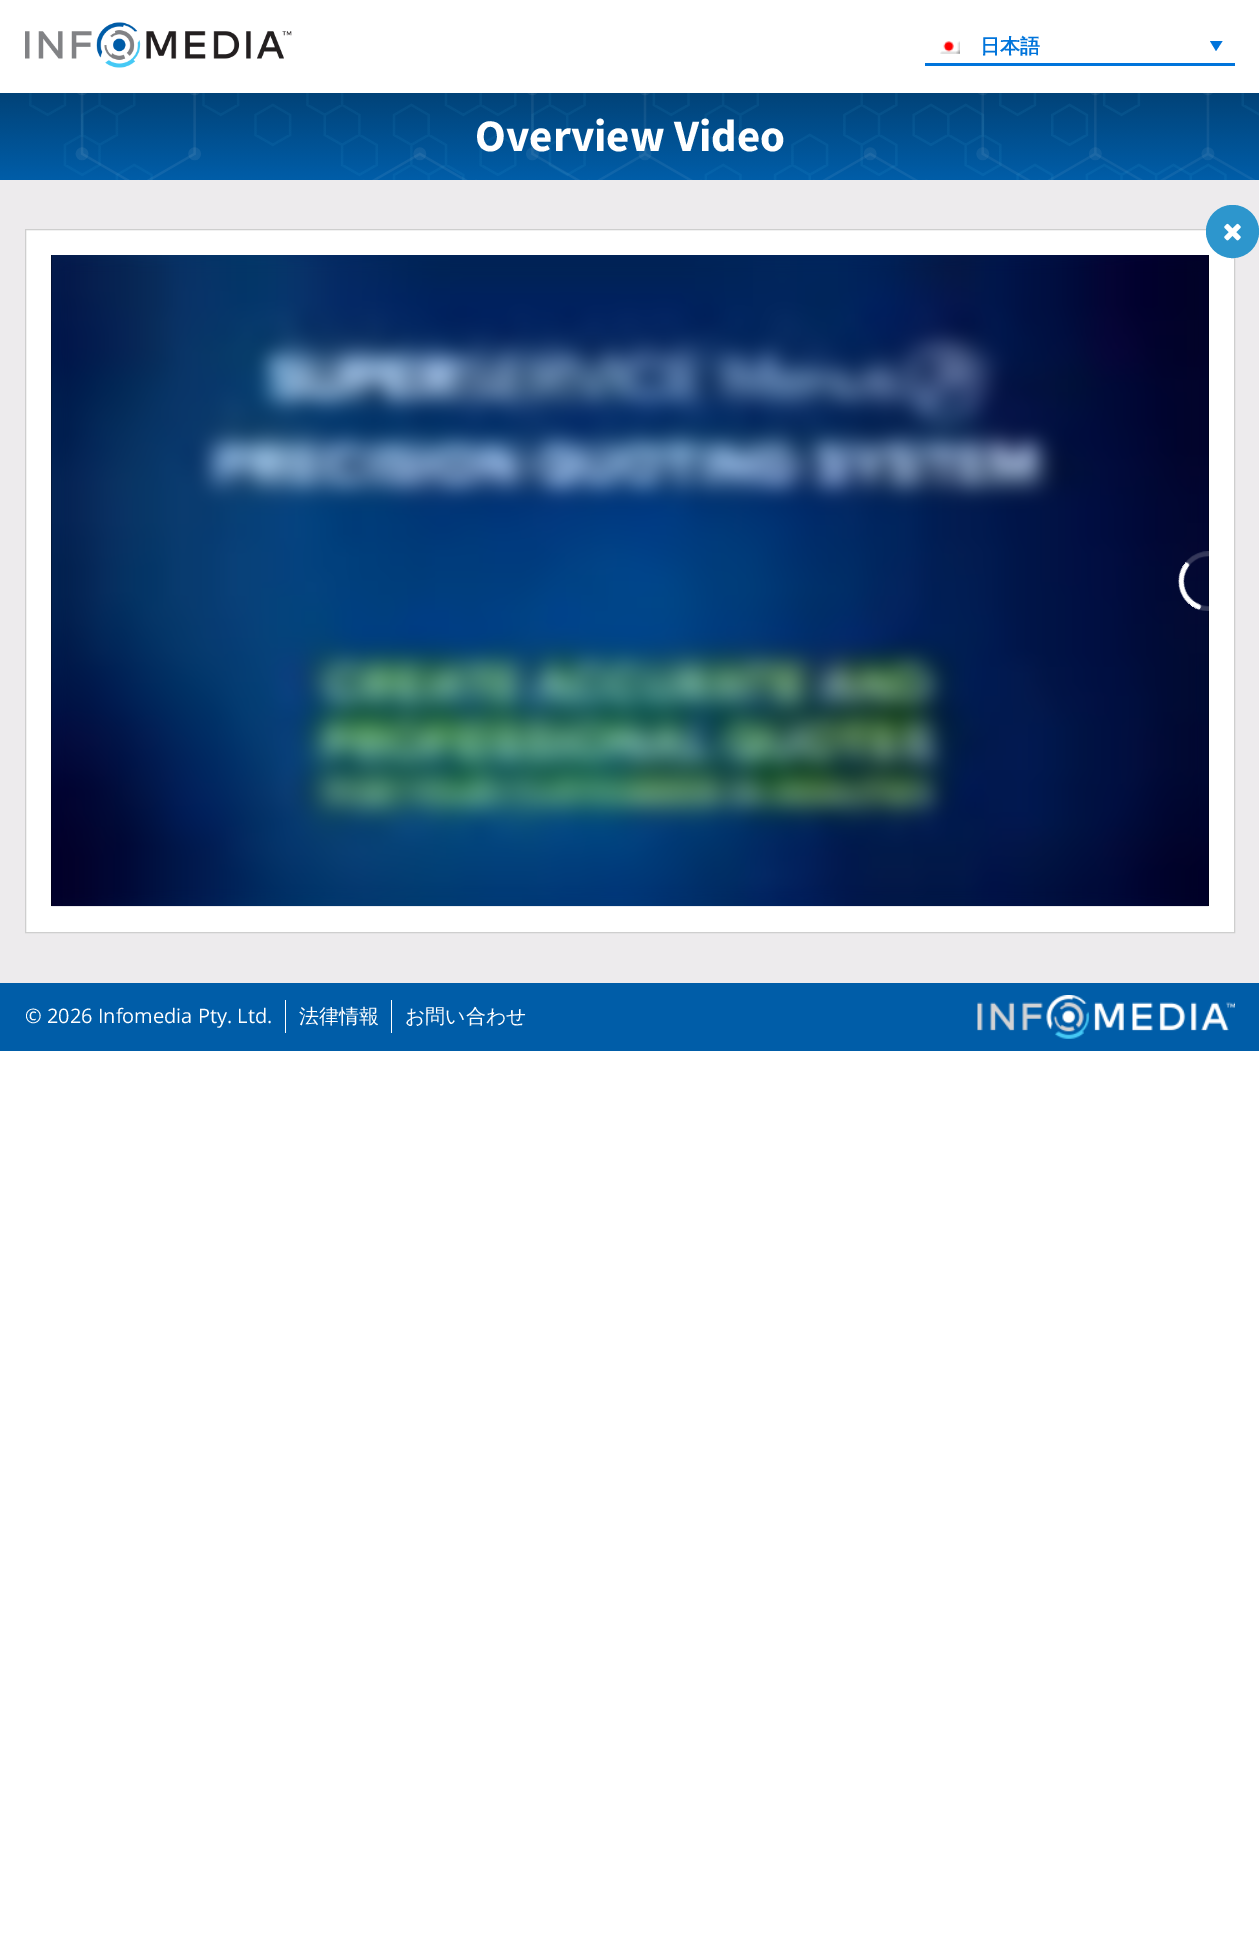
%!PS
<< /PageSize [1259 1937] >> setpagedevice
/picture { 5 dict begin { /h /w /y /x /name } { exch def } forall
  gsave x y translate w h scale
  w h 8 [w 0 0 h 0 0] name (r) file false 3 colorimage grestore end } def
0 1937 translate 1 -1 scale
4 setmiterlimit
1 setgray
0 0 1259 1937 rectfill
(img1.rgb) 25 22 267 46 picture
0 0.455 0.859 setrgbcolor
925 63 310 3 rectfill
(img2.rgb) 940 41 20 13 picture
/WenQuanYiZenHei-Bold [20 0 0 -20 0 0] selectfont
980 53 moveto (日本語) show
newpath 1210 41 moveto 1222.5 41 lineto 1216 51 lineto closepath fill
(img3.rgb) 0 93 1259 87 picture
/SourceSansPro-Bold [45 0 0 -45 0 0] selectfont
1 setgray
475 151 moveto (Overview Video) show
0.929 0.922 0.929 setrgbcolor
0 180 1259 803 rectfill
1 setgray
newpath 25.5 229.5 moveto 1234.5 229.5 lineto 1234.5 932.5 lineto 25.5 932.5 lineto closepath gsave fill grestore
0.808 setgray
stroke
0 setgray
51 255 1158 651 rectfill
0.176 0.588 0.804 setrgbcolor
newpath 1232.5 231.5 26 0 360 arc closepath gsave fill grestore
stroke
(img4.rgb) 1224 223 17 18 picture
(img5.rgb) 51 255 1158 652 picture
0 0.365 0.659 setrgbcolor
0 983 1259 68 rectfill
/OpenSans-Regular [20 0 0 -20 0 0] selectfont
1 setgray
25 1023 moveto (© 2026 Infomedia Pty. Ltd.) show
285 1000 1 33 rectfill
/WenQuanYiZenHei-Medium [20 0 0 -20 0 0] selectfont
299 1023 moveto (法律情報) show
391 1000 1 33 rectfill
405 1023 moveto (お問い合わせ) show
(img6.rgb) 977 995 258 44 picture
showpage
